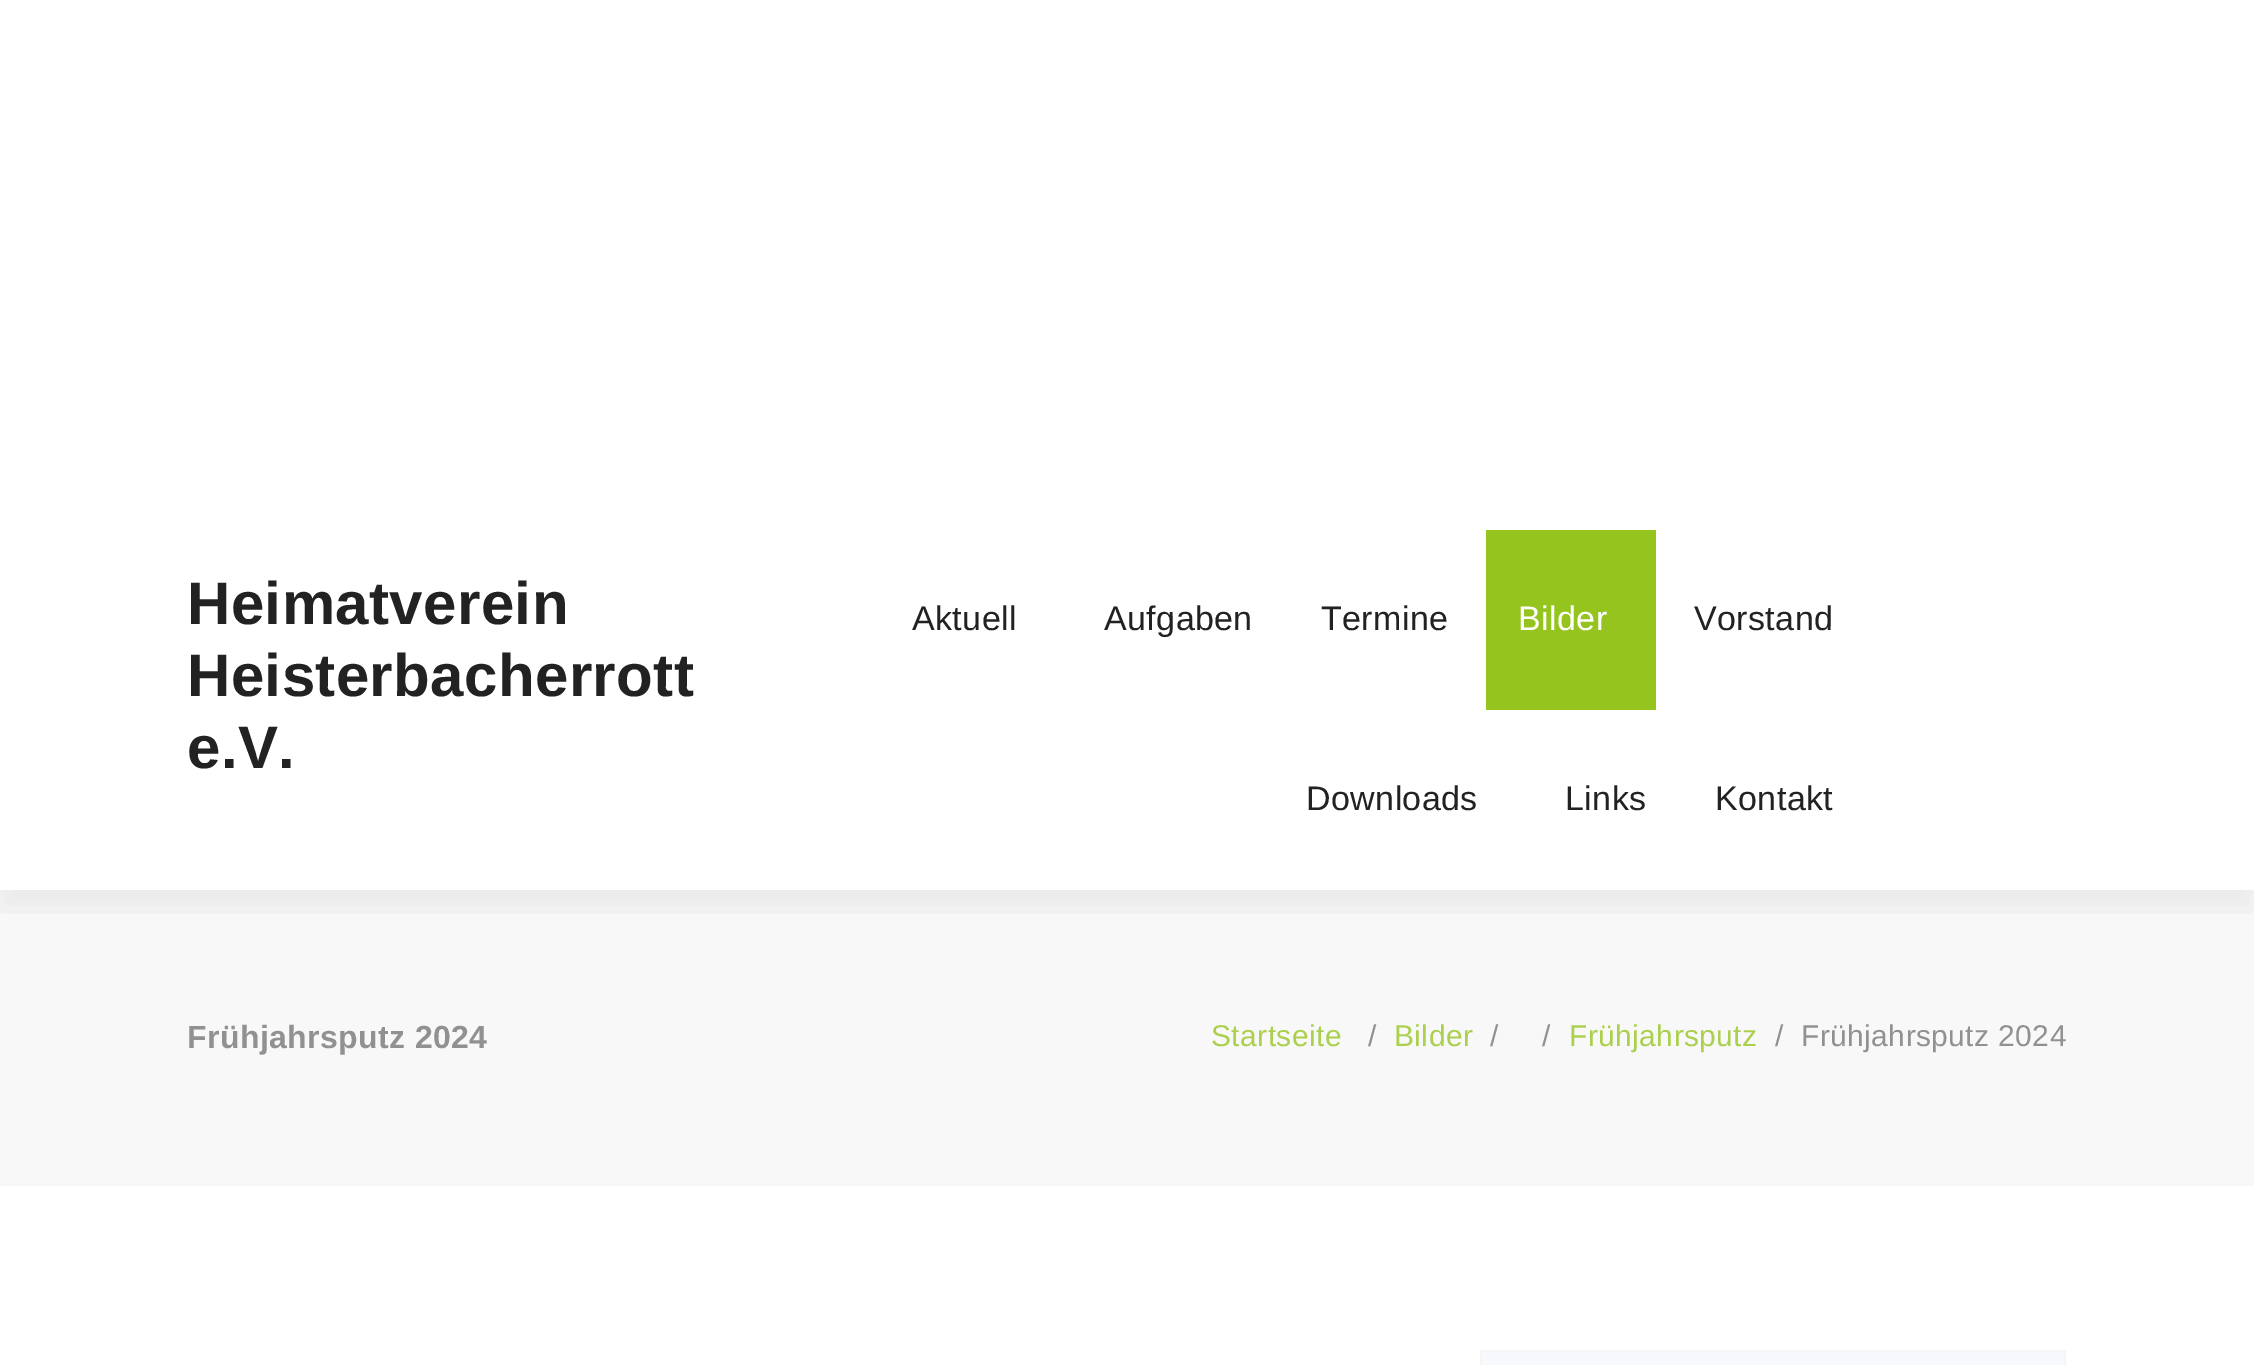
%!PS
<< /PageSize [2254 1365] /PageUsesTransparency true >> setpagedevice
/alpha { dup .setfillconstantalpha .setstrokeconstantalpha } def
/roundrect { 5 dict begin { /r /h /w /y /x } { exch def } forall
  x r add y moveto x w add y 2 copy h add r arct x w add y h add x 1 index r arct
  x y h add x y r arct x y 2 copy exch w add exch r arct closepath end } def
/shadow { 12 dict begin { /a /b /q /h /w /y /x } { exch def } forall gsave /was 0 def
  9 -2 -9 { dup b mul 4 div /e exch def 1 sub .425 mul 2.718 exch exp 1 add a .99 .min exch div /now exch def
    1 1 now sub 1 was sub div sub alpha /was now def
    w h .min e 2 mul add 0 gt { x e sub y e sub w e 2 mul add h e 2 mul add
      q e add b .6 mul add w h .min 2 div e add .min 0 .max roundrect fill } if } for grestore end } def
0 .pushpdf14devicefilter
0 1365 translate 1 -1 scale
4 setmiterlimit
1 setgray
0 0 2254 1365 rectfill
0.973 setgray
0 890 2254 296 rectfill
gsave
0 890 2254 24 rectclip
0 setgray
0 550 2254 360 0 15 0.05 shadow
grestore
/LiberationSans-Bold [60 0 0 -60 0 0] selectfont
0.133 setgray
187 624 moveto 0.4 0 (Heimatverein) ashow
187 696 moveto 0.4 0 (Heisterbacherrott) ashow
187 768 moveto 0.4 0 (e.V.) ashow
/LiberationSans-Regular [34 0 0 -34 0 0] selectfont
912 630 moveto 0.4 0 (Aktuell) ashow
1104 630 moveto 0.4 0 (Aufgaben) ashow
1321 630 moveto 0.4 0 (Termine) ashow
0.584 0.769 0.122 setrgbcolor
1486 530 170 180 rectfill
1 setgray
1518 630 moveto 0.4 0 (Bilder) ashow
0.133 setgray
1694 630 moveto 0.4 0 (Vorstand) ashow
1306 810 moveto 0.4 0 (Downloads) ashow
1565 810 moveto 0.4 0 (Links) ashow
1715 810 moveto 0.4 0 (Kontakt) ashow
/LiberationSans-Bold [32 0 0 -32 0 0] selectfont
0.569 setgray
187 1048 moveto 0.4 0 (Frühjahrsputz 2024) ashow
/LiberationSans-Regular [30 0 0 -30 0 0] selectfont
0.671 0.816 0.306 setrgbcolor
1211 1046 moveto 0.4 0 (Startseite) ashow
0.569 setgray
1368 1046 moveto 0.4 0 (/) ashow
0.671 0.816 0.306 setrgbcolor
1394 1046 moveto 0.4 0 (Bilder) ashow
0.569 setgray
1490 1046 moveto 0.4 0 (/     /) ashow
0.671 0.816 0.306 setrgbcolor
1569 1046 moveto 0.4 0 (Frühjahrsputz) ashow
0.569 setgray
1775 1046 moveto 0.4 0 (/) ashow
1801 1046 moveto 0.4 0 (Frühjahrsputz 2024) ashow
0.969 0.976 0.988 setrgbcolor
newpath 1481 1351 moveto 2065 1351 lineto 2065 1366 lineto 1481 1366 lineto closepath gsave fill grestore
0.965 setgray
2 setlinewidth
stroke
.poppdf14devicefilter showpage
